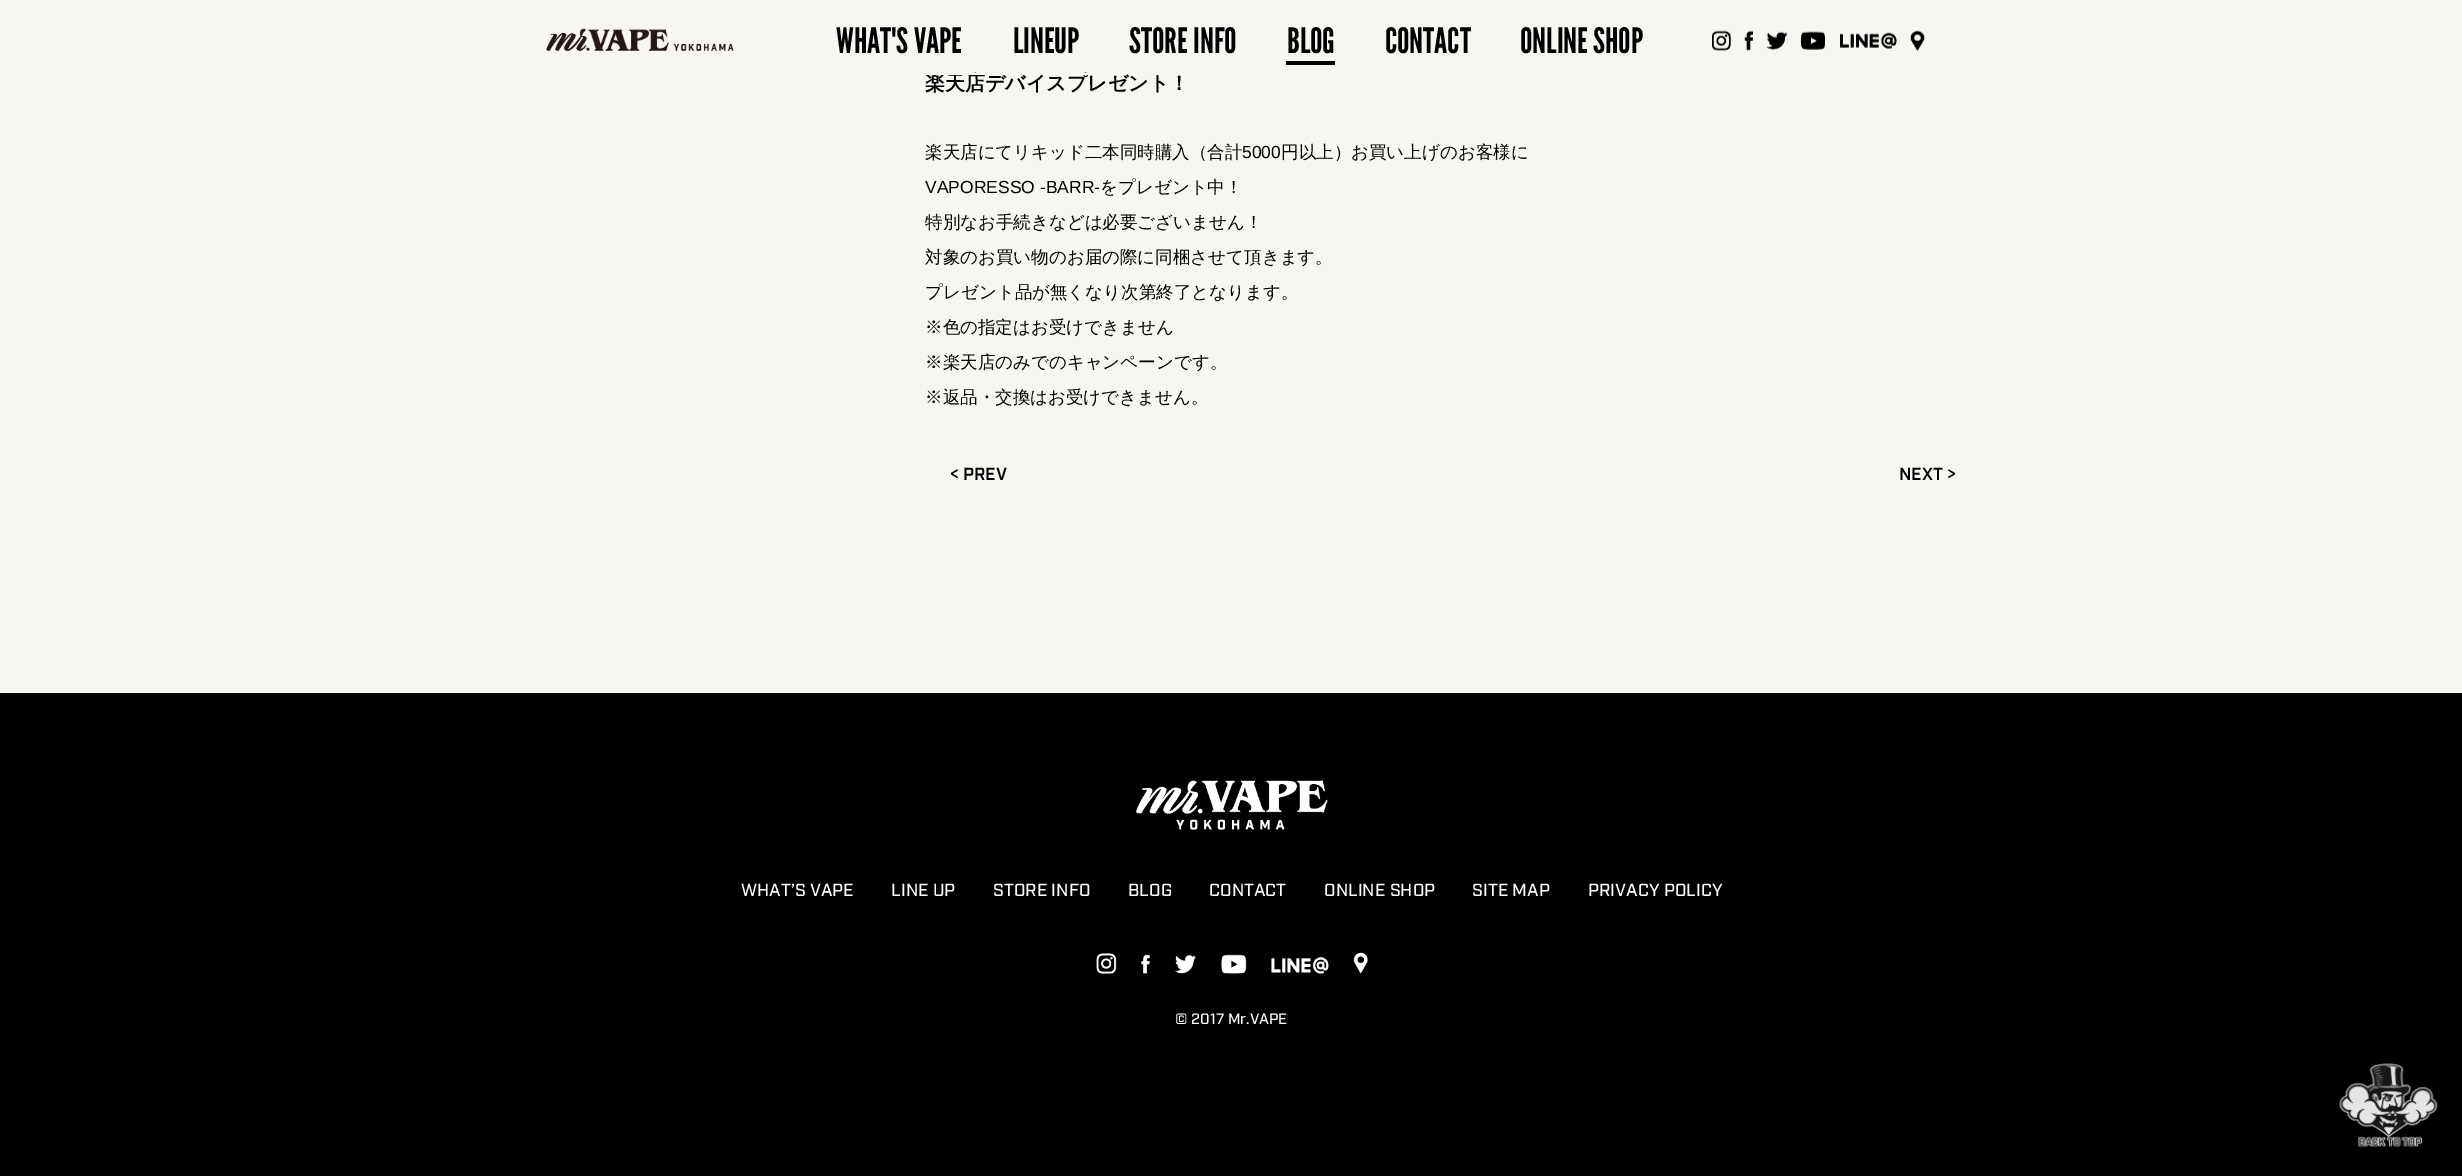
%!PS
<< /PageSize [2462 1176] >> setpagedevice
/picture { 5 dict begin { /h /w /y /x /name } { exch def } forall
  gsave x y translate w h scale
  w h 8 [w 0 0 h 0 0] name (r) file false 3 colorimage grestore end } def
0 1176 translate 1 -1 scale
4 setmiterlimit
0.973 0.965 0.949 setrgbcolor
0 0 2462 1176 rectfill
/WenQuanYiZenHei-Bold [20 0 0 -20 0 0] selectfont
0 setgray
925 90 moveto (楽天店デバイスプレゼント！) show
0.973 0.965 0.949 setrgbcolor
927 73 200 2 rectfill
(img1.rgb) 546 28 188 24 picture
/LeagueGothic-Regular [35 0 0 -35 0 0] selectfont
0 setgray
836 53 moveto (WHAT'S VAPE) show
1013 53 moveto (LINEUP) show
1129 53 moveto (STORE INFO) show
1286 61 49 4 rectfill
1287 53 moveto (BLOG) show
1385 53 moveto (CONTACT) show
1520 53 moveto (ONLINE SHOP) show
(img2.rgb) 1712 30 19 21 picture
(img3.rgb) 1744 30 9 21 picture
(img4.rgb) 1766 31 22 19 picture
(img5.rgb) 1800 31 25 19 picture
(img6.rgb) 1840 32 57 17 picture
(img7.rgb) 1910 30 15 21 picture
/WenQuanYiZenHei-Medium [17.5 0 0 -17.5 0 0] selectfont
925 158 moveto (楽天店にてリキッド二本同時購入（合計) show
/LiberationSans-Regular [17.5 0 0 -17.5 0 0] selectfont
1242 158 moveto (5000) show
/WenQuanYiZenHei-Medium [17.5 0 0 -17.5 0 0] selectfont
1281 158 moveto (円以上）お買い上げのお客様に) show
/LiberationSans-Regular [17.5 0 0 -17.5 0 0] selectfont
925 193 moveto (VAPORESSO -BARR-) show
/WenQuanYiZenHei-Medium [17.5 0 0 -17.5 0 0] selectfont
1100 193 moveto (をプレゼント中！) show
925 228 moveto (特別なお手続きなどは必要ございません！) show
925 263 moveto (対象のお買い物のお届の際に同梱させて頂きます。) show
925 298 moveto (プレゼント品が無くなり次第終了となります。) show
925 333 moveto (※色の指定はお受けできません) show
925 368 moveto (※楽天店のみでのキャンペーンです。) show
925 403 moveto (※返品・交換はお受けできません。) show
/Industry-SemiBold [17.5 0 0 -17.5 0 0] selectfont
950 480 moveto (< PREV) show
1899 480 moveto (NEXT >) show
0 693 2462 483 rectfill
(img8.rgb) 1136 780 192 50 picture
/Industry-Medium [17.5 0 0 -17.5 0 0] selectfont
1 setgray
741 896 moveto (WHAT’S VAPE) show
891 896 moveto (LINE UP) show
993 896 moveto (STORE INFO) show
1128 896 moveto (BLOG) show
1209 896 moveto (CONTACT) show
1324 896 moveto (ONLINE SHOP) show
1472 896 moveto (SITE MAP) show
1588 896 moveto (PRIVACY POLICY) show
(img9.rgb) 1096 953 21 21 picture
(img10.rgb) 1141 954 9 20 picture
(img11.rgb) 1175 954 21 20 picture
(img12.rgb) 1221 954 26 20 picture
(img13.rgb) 1271 957 58 17 picture
(img14.rgb) 1353 952 15 22 picture
/Industry-Medium [15 0 0 -15 0 0] selectfont
1175 1024 moveto (© 2017 Mr.VAPE) show
(img15.rgb) 2339 1063 99 84 picture
showpage
